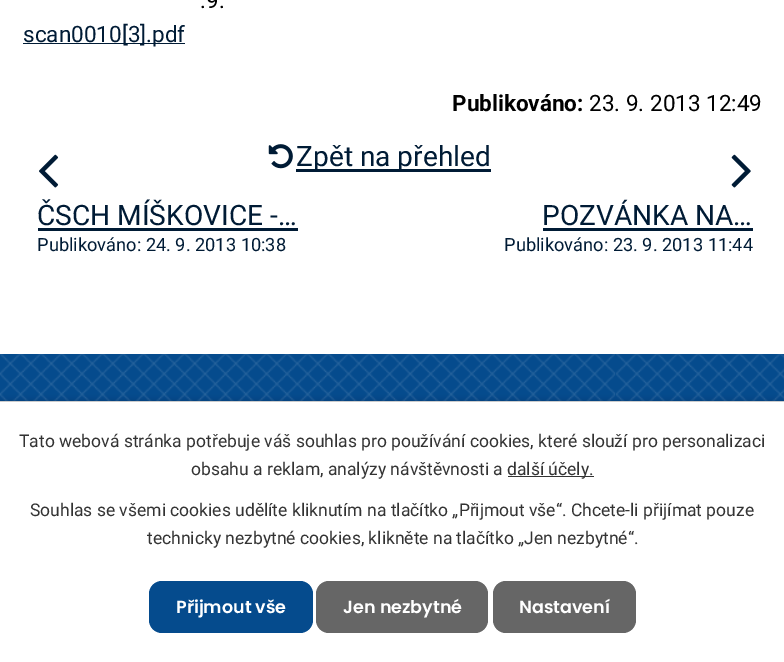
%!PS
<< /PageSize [784 662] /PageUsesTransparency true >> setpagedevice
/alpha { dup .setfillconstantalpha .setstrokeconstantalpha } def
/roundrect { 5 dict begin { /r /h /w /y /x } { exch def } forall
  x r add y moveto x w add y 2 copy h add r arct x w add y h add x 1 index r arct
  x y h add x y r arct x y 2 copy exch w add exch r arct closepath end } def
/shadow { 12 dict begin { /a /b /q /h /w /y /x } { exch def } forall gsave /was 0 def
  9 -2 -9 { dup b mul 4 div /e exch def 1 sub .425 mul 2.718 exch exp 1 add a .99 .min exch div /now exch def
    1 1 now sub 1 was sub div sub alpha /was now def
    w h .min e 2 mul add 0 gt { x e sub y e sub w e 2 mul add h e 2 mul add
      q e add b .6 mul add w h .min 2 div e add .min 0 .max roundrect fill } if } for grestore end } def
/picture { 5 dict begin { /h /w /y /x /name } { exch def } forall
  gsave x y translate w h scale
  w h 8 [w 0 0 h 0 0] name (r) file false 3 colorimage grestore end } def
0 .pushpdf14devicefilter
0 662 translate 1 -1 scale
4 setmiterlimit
1 setgray
0 0 784 662 rectfill
/Roboto-Regular [22.5 0 0 -22.5 0 0] selectfont
0 setgray
200 8 moveto (.9.) show
0 0.106 0.208 setrgbcolor
23 43 162 1 rectfill
23 42 moveto (scan0010[3].pdf) show
/Roboto-Bold [22.5 0 0 -22.5 0 0] selectfont
0 setgray
452 111 moveto (Publikováno:) show
/Roboto-Regular [22.5 0 0 -22.5 0 0] selectfont
589 111 moveto (23. 9. 2013 12:49) show
(img1.rgb) 268 144 25 25 picture
0 0.106 0.208 setrgbcolor
296 169 195 3 rectfill
/Roboto-Regular [28.1 0 0 -28.1 0 0] selectfont
296 166 moveto (Zpět na přehled) show
(img2.rgb) 39 154 20 34 picture
37 225 moveto (ČSCH MÍŠKOVICE -…) show
38 228 260 3 rectfill
/Roboto-Regular [18.25 0 0 -18.25 0 0] selectfont
37 251 moveto (Publikováno: 24. 9. 2013 10:38) show
(img3.rgb) 731 154 20 34 picture
/Roboto-Regular [28.1 0 0 -28.1 0 0] selectfont
542 225 moveto (POZVÁNKA NA…) show
543 228 210 3 rectfill
/Roboto-Regular [18.25 0 0 -18.25 0 0] selectfont
504 251 moveto (Publikováno: 23. 9. 2013 11:44) show
0.02 0.294 0.553 setrgbcolor
0 354 784 47 rectfill
(img4.rgb) 0 354 784 47 picture
0 setgray
0 401 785 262 0 3 0.2 shadow
1 setgray
0 402 784 260 rectfill
0.8 setgray
0 401 784 1 rectfill
/Roboto-Regular [17.5 0 0 -17.5 0 0] selectfont
0.2 setgray
19 447 moveto (Tato webová stránka potřebuje váš souhlas pro používání cookies, které slouží pro personalizaci) show
191 475 moveto (obsahu a reklam, analýzy návštěvnosti a) show
508 476 86 1 rectfill
507 475 moveto (další účely.) show
30 516 moveto (Souhlas se všemi cookies udělíte kliknutím na tlačítko „Přijmout vše“. Chcete-li přijímat pouze) show
147 544 moveto (technicky nezbytné cookies, klikněte na tlačítko „Jen nezbytné“.) show
0.02 0.294 0.553 setrgbcolor
149 581 164 52 13 roundrect fill
/Poppins-SemiBold [17.5 0 0 -17.5 0 0] selectfont
1 setgray
176 613 moveto (Přijmout vše) show
0.4 setgray
316 581 172 52 13 roundrect fill
1 setgray
343 613 moveto (Jen nezbytné) show
0.4 setgray
493 581 143 52 13 roundrect fill
1 setgray
519 613 moveto (Nastavení) show
.poppdf14devicefilter showpage
